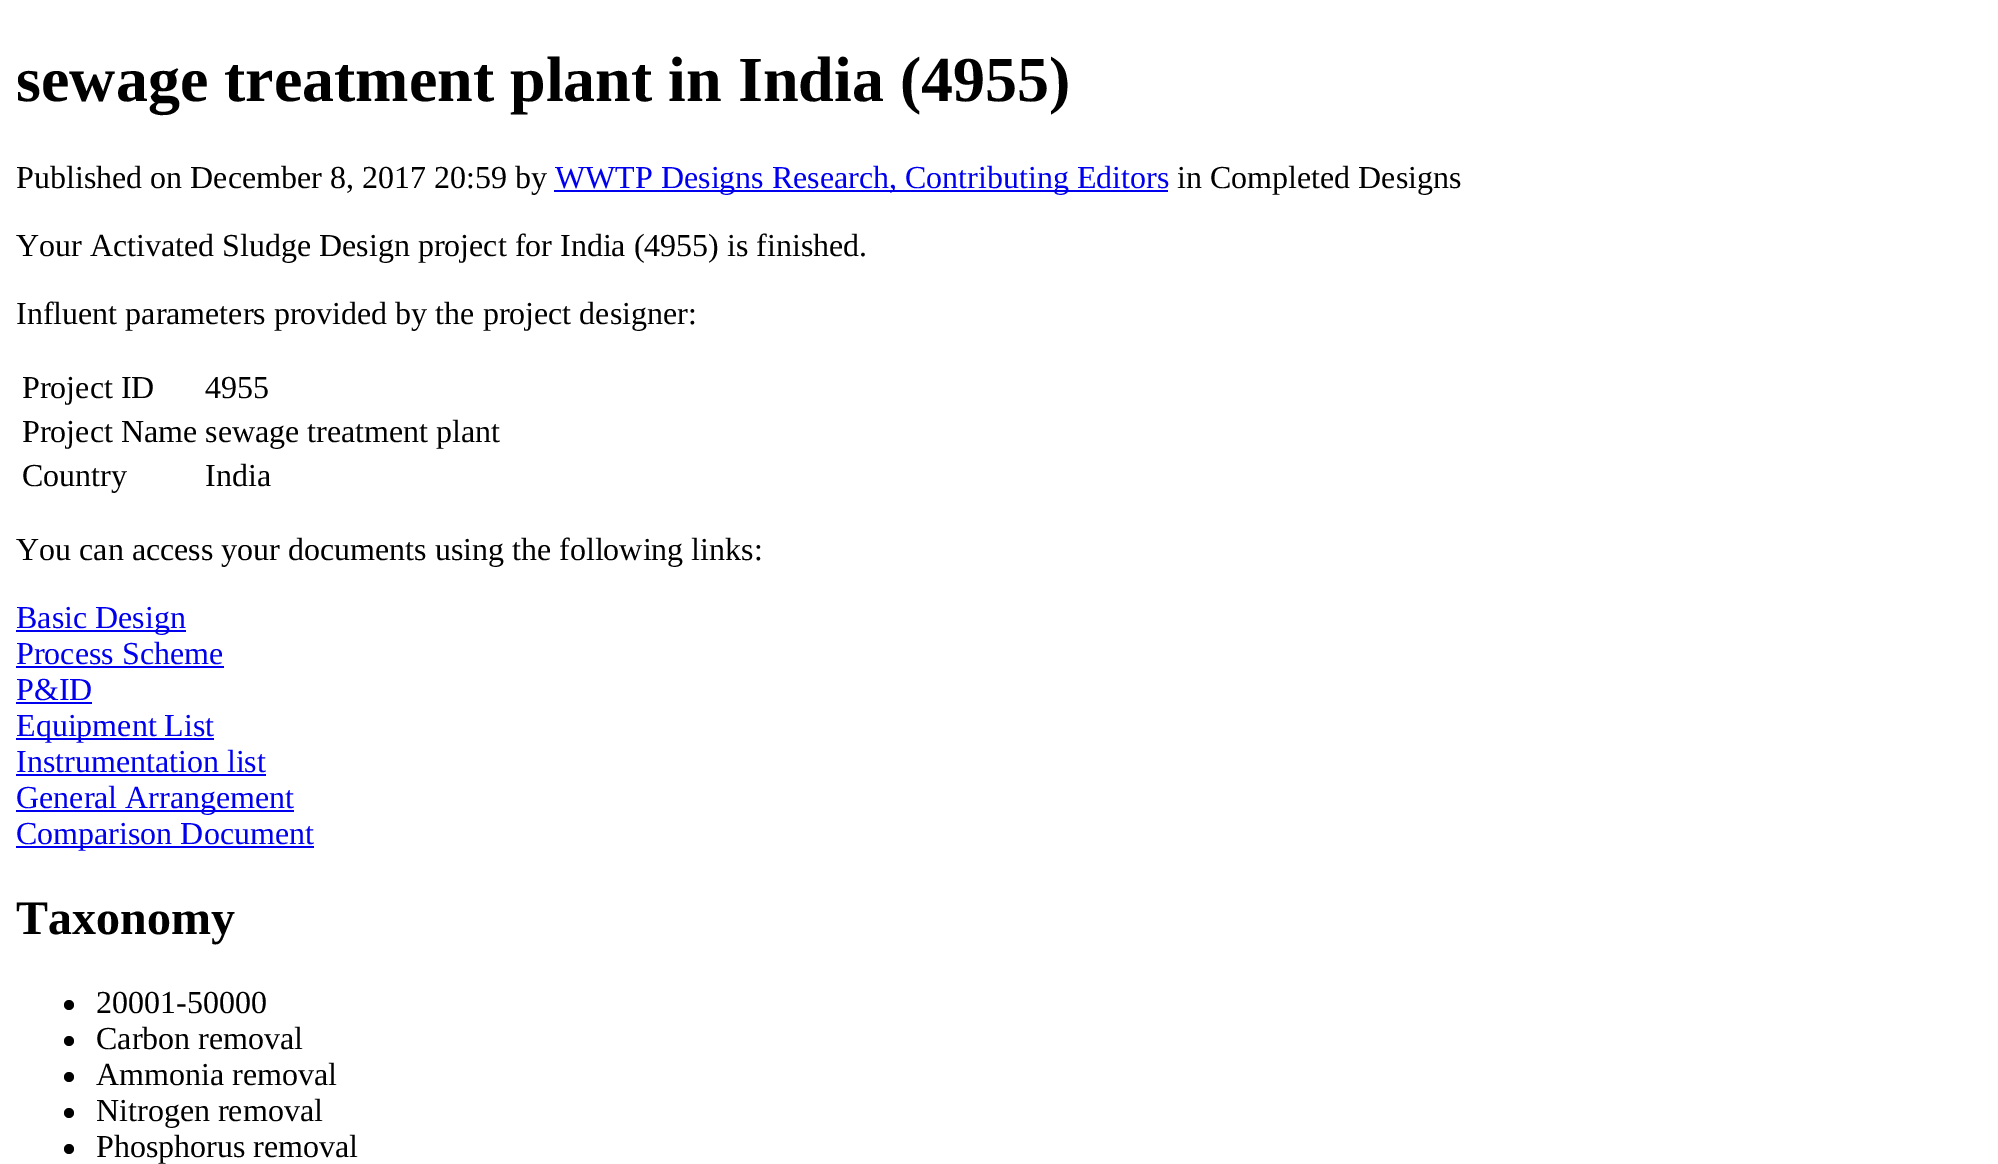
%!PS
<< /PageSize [1998 1164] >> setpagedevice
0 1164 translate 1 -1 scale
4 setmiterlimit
1 setgray
0 0 1998 1164 rectfill
/LiberationSerif-Bold [64 0 0 -64 0 0] selectfont
0 setgray
16 101 moveto (sewage treatment plant in India \(4955\)) show
/LiberationSerif-Regular [32 0 0 -32 0 0] selectfont
16 188 moveto (Published on December 8, 2017 20:59 by) show
0 0 0.933 setrgbcolor
554 190 614 2 rectfill
555 188 moveto (WWTP Designs Research, Contributing Editors) show
0 setgray
1177 188 moveto (in Completed Designs) show
16 256 moveto (Your Activated Sludge Design project for India \(4955\) is finished.) show
16 324 moveto (Influent parameters provided by the project designer:) show
22 398 moveto (Project ID) show
205 398 moveto (4955) show
22 442 moveto (Project Name sewage treatment plant) show
22 486 moveto (Country) show
205 486 moveto (India) show
16 560 moveto (You can access your documents using the following links:) show
0 0 0.933 setrgbcolor
16 630 170 2 rectfill
16 628 moveto (Basic Design) show
16 664 moveto (Process Scheme) show
16 666 208 2 rectfill
16 700 moveto (P&ID) show
16 702 76 2 rectfill
16 738 198 2 rectfill
16 736 moveto (Equipment List) show
16 772 moveto (Instrumentation list) show
16 774 250 2 rectfill
16 810 278 2 rectfill
16 808 moveto (General Arrangement) show
16 846 298 2 rectfill
16 844 moveto (Comparison Document) show
/LiberationSerif-Bold [48 0 0 -48 0 0] selectfont
0 setgray
16 934 moveto (Taxonomy) show
newpath 69 1005 5 0 360 arc closepath fill
/LiberationSerif-Regular [32 0 0 -32 0 0] selectfont
96 1013 moveto (20001-50000) show
newpath 69 1041 5 0 360 arc closepath fill
96 1049 moveto (Carbon removal) show
newpath 69 1077 5 0 360 arc closepath fill
96 1085 moveto (Ammonia removal) show
newpath 69 1113 5 0 360 arc closepath fill
96 1121 moveto (Nitrogen removal) show
newpath 69 1149 5 0 360 arc closepath fill
96 1157 moveto (Phosphorus removal) show
showpage
